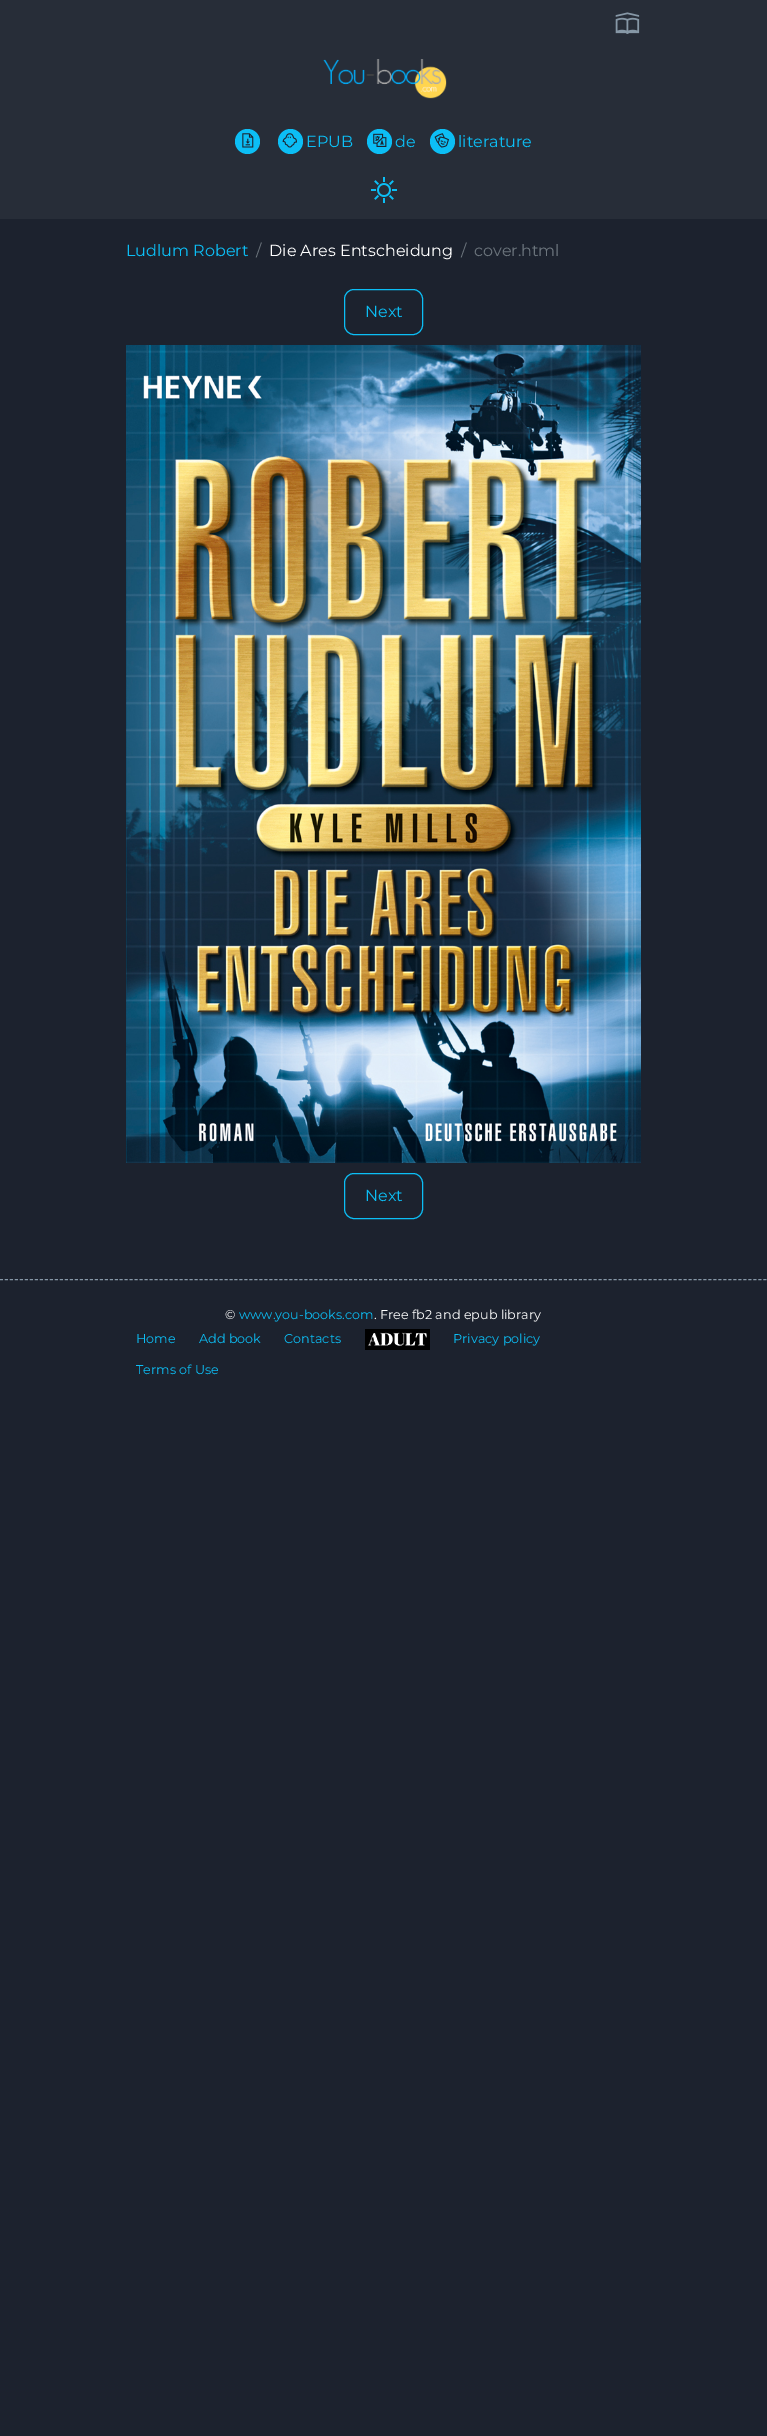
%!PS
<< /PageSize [767 2436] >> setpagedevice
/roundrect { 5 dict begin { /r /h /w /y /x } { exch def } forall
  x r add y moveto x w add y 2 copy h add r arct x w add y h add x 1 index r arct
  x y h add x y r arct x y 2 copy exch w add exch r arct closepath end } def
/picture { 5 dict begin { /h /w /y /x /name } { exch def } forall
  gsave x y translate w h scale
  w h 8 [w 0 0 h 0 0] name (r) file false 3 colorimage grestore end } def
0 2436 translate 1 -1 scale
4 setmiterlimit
0.11 0.133 0.18 setrgbcolor
0 0 767 2436 rectfill
0.153 0.176 0.22 setrgbcolor
0 0 767 219 rectfill
(img1.rgb) 615 12 25 22 picture
(img2.rgb) 323 59 124 40 picture
0.047 0.745 0.961 setrgbcolor
newpath 247.5 141.5 12.5 0 360 arc closepath fill
(img3.rgb) 242 133 12 15 picture
newpath 290.5 141.5 12.5 0 360 arc closepath fill
(img4.rgb) 282 133 15 15 picture
/Montserrat-Regular [16 0 0 -16 0 0] selectfont
306 147 moveto (EPUB) show
newpath 379.5 141.5 12.5 0 360 arc closepath fill
(img5.rgb) 373 133 14 14 picture
395 147 moveto (de) show
newpath 442.5 141.5 12.5 0 360 arc closepath fill
(img6.rgb) 434 133 15 15 picture
458 147 moveto (literature) show
(img7.rgb) 371 177 26 26 picture
126 256 moveto (Ludlum Robert) show
0.424 0.459 0.49 setrgbcolor
256 256 moveto (/) show
1 setgray
269 256 moveto (Die Ares Entscheidung) show
0.424 0.459 0.49 setrgbcolor
461 256 moveto (/) show
474 256 moveto (cover.html) show
0.047 0.745 0.961 setrgbcolor
344.5 289.5 78 45 9.5 roundrect stroke
365 317 moveto (Next) show
(img8.rgb) 126 345 515 818 picture
344.5 1173.5 78 45 9.5 roundrect stroke
365 1201 moveto (Next) show
0.525 0.592 0.651 setrgbcolor
[3 1.99] 0 setdash
newpath 0 1279.5 moveto 767 1279.5 lineto stroke
/Montserrat-Regular [12.75 0 0 -12.75 0 0] selectfont
1 setgray
225 1319 moveto (©) show
0.047 0.745 0.961 setrgbcolor
239 1319 moveto (www.you-books.com) show
1 setgray
374 1319 moveto (. Free fb2 and epub library) show
0.047 0.745 0.961 setrgbcolor
136 1343 moveto (Home) show
199 1343 moveto (Add book) show
284 1343 moveto (Contacts) show
(img9.rgb) 365 1329 65 21 picture
453 1343 moveto (Privacy policy) show
136 1374 moveto (Terms of Use) show
showpage
